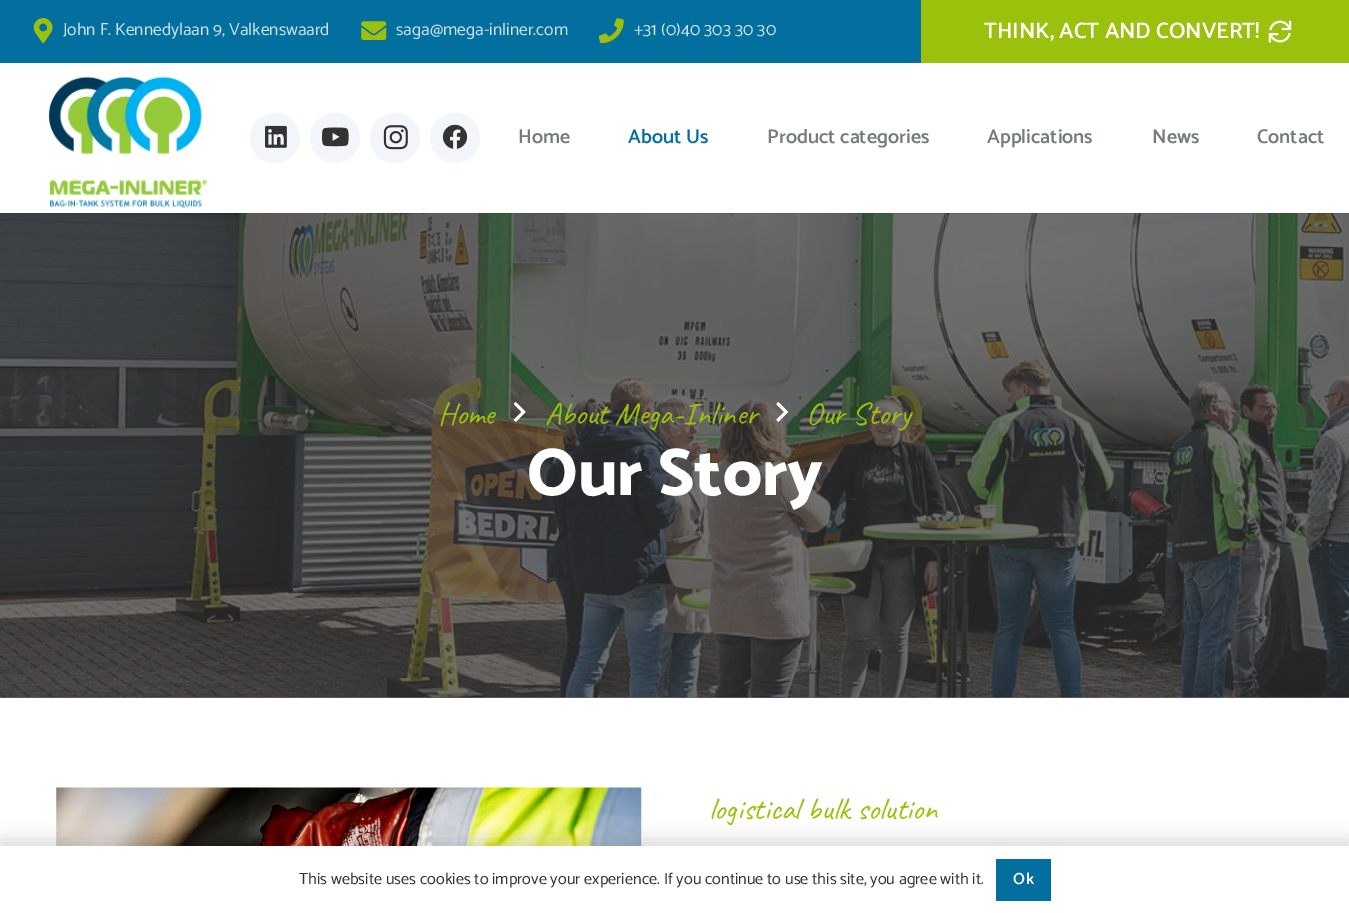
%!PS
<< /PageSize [1349 913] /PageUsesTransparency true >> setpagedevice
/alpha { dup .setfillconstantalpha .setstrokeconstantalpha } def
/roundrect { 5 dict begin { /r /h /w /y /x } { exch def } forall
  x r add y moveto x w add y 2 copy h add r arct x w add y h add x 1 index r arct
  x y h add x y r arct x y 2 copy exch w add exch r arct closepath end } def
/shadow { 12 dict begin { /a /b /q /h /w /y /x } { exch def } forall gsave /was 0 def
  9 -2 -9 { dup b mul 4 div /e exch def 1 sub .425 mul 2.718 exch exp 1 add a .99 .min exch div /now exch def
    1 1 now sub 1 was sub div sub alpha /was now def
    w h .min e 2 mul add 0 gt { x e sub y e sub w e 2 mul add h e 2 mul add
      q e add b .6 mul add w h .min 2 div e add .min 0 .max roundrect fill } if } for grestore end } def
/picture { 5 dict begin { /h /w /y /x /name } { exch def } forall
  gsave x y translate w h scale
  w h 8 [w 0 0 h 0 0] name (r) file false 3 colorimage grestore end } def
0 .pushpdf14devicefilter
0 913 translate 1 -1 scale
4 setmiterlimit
1 setgray
0 0 1349 913 rectfill
0.439 setgray
0 697 1349 1 rectfill
0.012 0.435 0.62 setrgbcolor
0 0 921 63 rectfill
(img1.rgb) 33 18 20 26 picture
/Catamaran-Regular [17.5 0 0 -17.5 0 0] selectfont
0.804 0.886 0.925 setrgbcolor
63 35 moveto (John F. Kennedylaan 9, Valkenswaard) show
(img2.rgb) 361 21 26 19 picture
396 35 moveto (saga@mega-inliner.com) show
(img3.rgb) 598 18 26 26 picture
634 35 moveto (+31 \(0\)40 303 30 30) show
0.612 0.757 0.051 setrgbcolor
921 0 428 63 rectfill
/Catamaran-SemiBold [22.5 0 0 -22.5 0 0] selectfont
1 setgray
984 38 moveto (THINK, ACT AND CONVERT!) show
(img4.rgb) 1268 20 24 23 picture
(img10.rgb) 0 213 1349 485 picture
0.08 alpha
0 setgray
0 213 1349 1 rectfill
1 alpha
(img5.rgb) 48 76 160 133 picture
0.949 0.961 0.976 setrgbcolor
newpath 275 138 25 0 360 arc closepath fill
(img6.rgb) 265 125 22 23 picture
newpath 335 138 25 0 360 arc closepath fill
(img7.rgb) 322 127 27 20 picture
newpath 395 138 25 0 360 arc closepath fill
(img8.rgb) 383 125 25 25 picture
newpath 455 138 25 0 360 arc closepath fill
(img9.rgb) 442 124 26 25 picture
/Catamaran-SemiBold [20 0 0 -20 0 0] selectfont
0.451 0.486 0.463 setrgbcolor
518 143 moveto (Home) show
0.012 0.435 0.62 setrgbcolor
628 143 moveto (About Us) show
0.451 0.486 0.463 setrgbcolor
767 143 moveto (Product categories) show
987 143 moveto (Applications) show
1152 143 moveto (News) show
1257 143 moveto (Contact) show
/Caveat-Regular [31.5 0 0 -31.5 0 0] selectfont
0.612 0.757 0.051 setrgbcolor
438 424 moveto (Home) show
(img11.rgb) 513 402 13 20 picture
545 424 moveto (About Mega-Inliner) show
(img12.rgb) 776 402 12 20 picture
806 424 moveto (Our Story) show
/Catamaran-ExtraBold [67.5 0 0 -67.5 0 0] selectfont
1 setgray
527 495 moveto (Our Story) show
(img13.rgb) 56 787 586 59 picture
/Caveat-Regular [31.5 0 0 -31.5 0 0] selectfont
0.612 0.757 0.051 setrgbcolor
709 819 moveto (logistical bulk solution) show
0 setgray
0 840 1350 68 0 9.5 0.15 shadow
1 setgray
0 846 1349 67 rectfill
/Catamaran-Regular [16.25 0 0 -16.25 0 0] selectfont
0.2 setgray
299 884 moveto (This website uses cookies to improve your experience. If you continue to use this site, you agree with it.) show
0.012 0.435 0.62 setrgbcolor
996 859 55 42 rectfill
/Catamaran-SemiBold [16.25 0 0 -16.25 0 0] selectfont
1 setgray
1013 884 moveto 1 0 (Ok) ashow
.poppdf14devicefilter showpage
